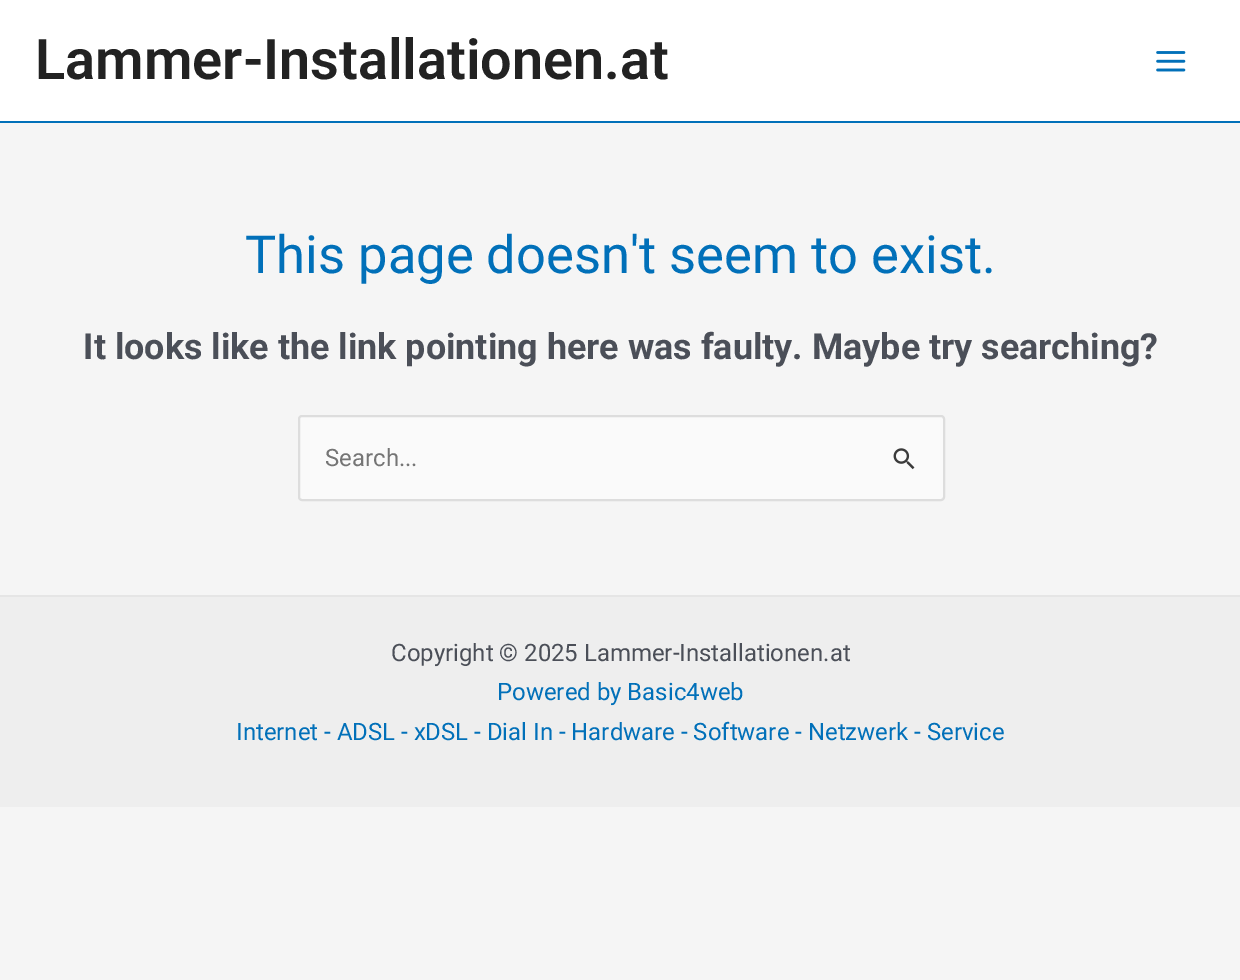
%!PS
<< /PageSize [1240 980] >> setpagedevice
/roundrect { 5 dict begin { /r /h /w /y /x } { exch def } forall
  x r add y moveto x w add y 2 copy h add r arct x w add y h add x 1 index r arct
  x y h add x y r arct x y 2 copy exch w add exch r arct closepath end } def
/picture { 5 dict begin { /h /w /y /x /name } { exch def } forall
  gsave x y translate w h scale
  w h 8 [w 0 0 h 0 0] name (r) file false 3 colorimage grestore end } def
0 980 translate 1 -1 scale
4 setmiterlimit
0.961 setgray
0 0 1240 980 rectfill
1 setgray
0 0 1240 121 rectfill
0.004 0.439 0.725 setrgbcolor
0 121 1240 2 rectfill
/Roboto-SemiBold [55.9 0 0 -55.9 0 0] selectfont
0.133 setgray
35 79 moveto (Lammer-Installationen.at) show
(img1.rgb) 1156 51 30 21 picture
/Roboto-Regular [52.5 0 0 -52.5 0 0] selectfont
0.004 0.439 0.725 setrgbcolor
245 273 moveto (This page doesn't seem to exist.) show
/Roboto-Bold [35.9 0 0 -35.9 0 0] selectfont
0.294 0.31 0.345 setrgbcolor
83 359 moveto (It looks like the link pointing here was faulty. Maybe try searching?) show
0.98 setgray
299 416 645 84 3 roundrect gsave fill grestore
0.867 setgray
2 setlinewidth
stroke
/Roboto-Regular [23.95 0 0 -23.95 0 0] selectfont
0.459 setgray
325 466 moveto (Search...) show
(img2.rgb) 893 448 22 22 picture
0.933 setgray
0 597 1240 210 rectfill
0.898 setgray
0 595 1240 2 rectfill
0.294 0.31 0.345 setrgbcolor
391 661 moveto (Copyright © 2025 Lammer-Installationen.at) show
0.004 0.439 0.725 setrgbcolor
497 700 moveto (Powered by Basic4web) show
236 740 moveto (Internet - ADSL - xDSL - Dial In - Hardware - Software - Netzwerk - Service) show
showpage
